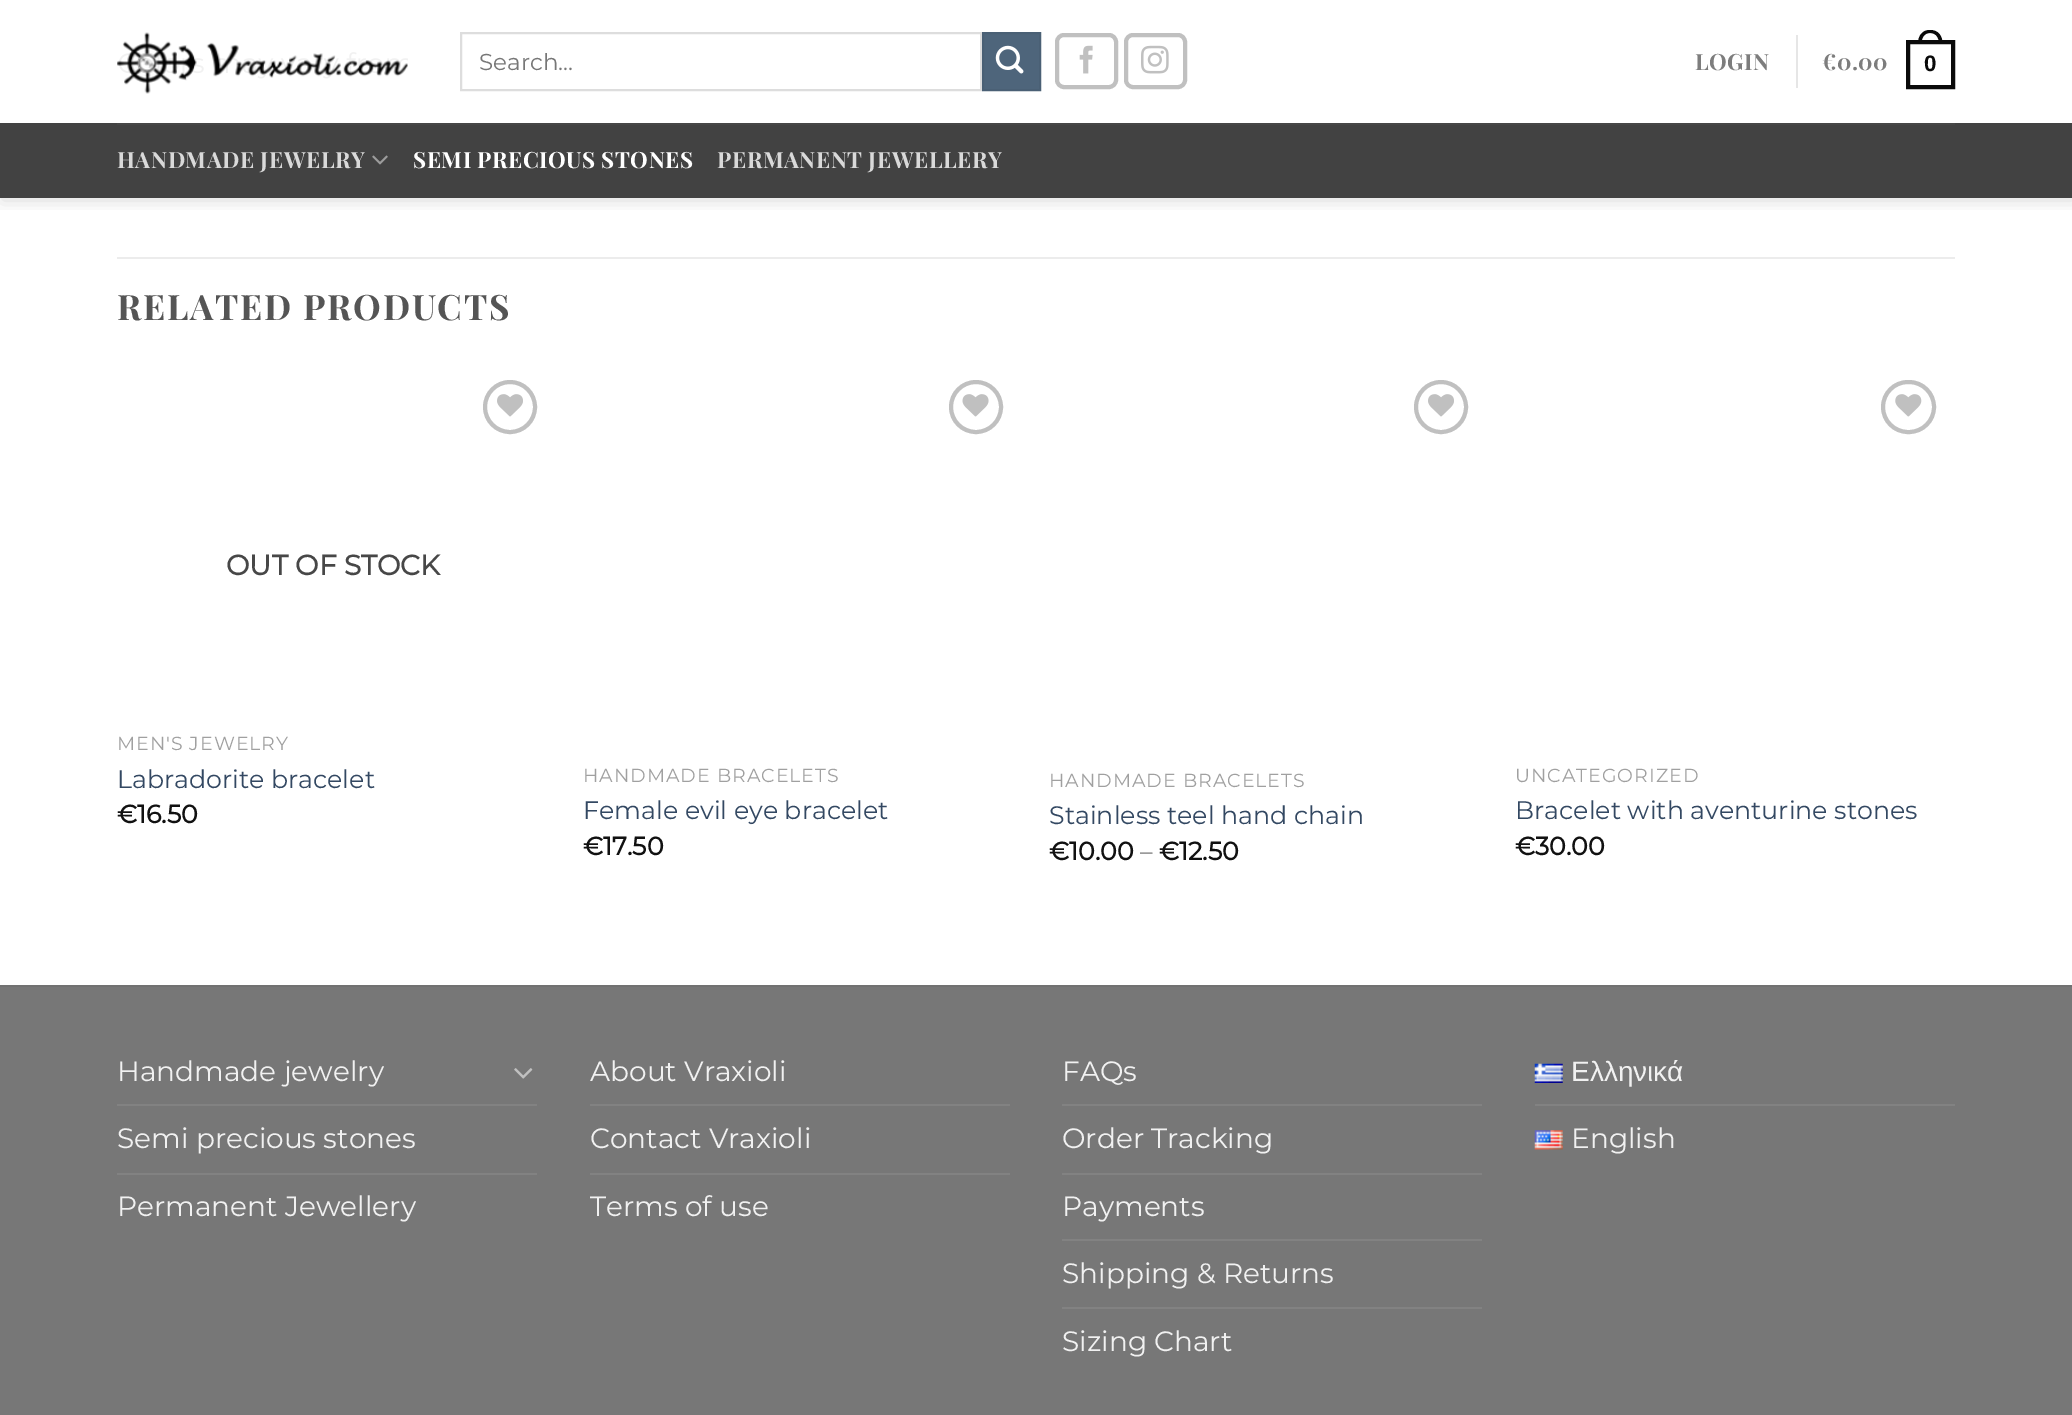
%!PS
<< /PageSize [2072 1415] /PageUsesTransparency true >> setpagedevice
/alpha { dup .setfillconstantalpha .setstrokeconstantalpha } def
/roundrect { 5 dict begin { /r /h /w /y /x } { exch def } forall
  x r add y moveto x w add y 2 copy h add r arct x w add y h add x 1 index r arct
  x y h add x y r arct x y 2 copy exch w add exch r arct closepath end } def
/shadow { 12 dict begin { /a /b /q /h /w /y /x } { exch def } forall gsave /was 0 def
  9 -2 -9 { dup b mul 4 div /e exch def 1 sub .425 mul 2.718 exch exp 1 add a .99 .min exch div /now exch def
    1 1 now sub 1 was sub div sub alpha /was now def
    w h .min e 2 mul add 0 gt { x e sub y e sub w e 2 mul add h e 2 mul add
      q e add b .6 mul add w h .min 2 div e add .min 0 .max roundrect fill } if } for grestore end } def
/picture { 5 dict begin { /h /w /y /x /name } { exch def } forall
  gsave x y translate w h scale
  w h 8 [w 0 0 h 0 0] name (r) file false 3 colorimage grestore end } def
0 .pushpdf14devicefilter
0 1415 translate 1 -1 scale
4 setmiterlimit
1 setgray
0 0 2072 1415 rectfill
gsave
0 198 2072 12 rectclip
0 setgray
2 2 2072 198 0 9 0.15 shadow
grestore
(img1.rgb) 117 32 291 62 picture
0.867 setgray
2 setlinewidth
461 33 520 57 rectstroke
/Montserrat-Regular [23 0 0 -23 0 0] selectfont
0.467 setgray
479 70 moveto (Search…) show
0.306 0.396 0.482 setrgbcolor
newpath 983 33 moveto 1040 33 lineto 1040 90 lineto 983 90 lineto closepath gsave fill grestore
0.29 0.376 0.459 setrgbcolor
stroke
(img2.rgb) 995 45 29 29 picture
0.753 setgray
4 setlinewidth
1057 35 59 52 7 roundrect stroke
(img3.rgb) 1079 45 14 29 picture
1126 35 59 52 7 roundrect stroke
(img4.rgb) 1141 45 28 29 picture
/PlayfairDisplay-Bold [22.4 0 0 -22.4 0 0] selectfont
0.49 setgray
1695 70 moveto 0.5 0 (LOGIN) ashow
0.902 setgray
1796 35 2 53 rectfill
0.49 setgray
1822 70 moveto 0.5 0 (€0.00) ashow
0.039 setgray
1908 42 45 45 rectstroke
newpath 1930 30 moveto 1938.5 30 1942.5 36 1942.5 44 curveto 1918 44 lineto 1918 36 1922 30 1930 30 curveto closepath 1930 33 moveto 1936.5 33 1939 38 1939 44 curveto 1921.5 44 lineto 1921.5 38 1924 33 1930 33 curveto closepath eofill
/LiberationSans-Bold [22.4 0 0 -22.4 0 0] selectfont
1924 71 moveto 0.5 0 (0) ashow
0.259 setgray
0 123 2072 75 rectfill
0.278 setgray
117 123 1838 2 rectfill
/PlayfairDisplay-Bold [22.4 0 0 -22.4 0 0] selectfont
0.851 setgray
117 168 moveto 0.5 0 (HANDMADE JEWELRY) ashow
(img5.rgb) 372 155 16 10 picture
1 setgray
413 168 moveto 0.5 0 (SEMI PRECIOUS STONES) ashow
0.851 setgray
717 168 moveto 0.5 0 (PERMANENT JEWELLERY) ashow
0.925 setgray
117 257 1838 2 rectfill
/PlayfairDisplay-Bold [35 0 0 -35 0 0] selectfont
0.333 setgray
117 320 moveto 1.75 0 (RELATED PRODUCTS) ashow
0.753 setgray
newpath 510 407 25 0 360 arc closepath stroke
(img6.rgb) 497 394 26 23 picture
/Montserrat-Bold [28 0 0 -28 0 0] selectfont
0.278 setgray
226 575 moveto (OUT OF STOCK) show
/Montserrat-Regular [18.9 0 0 -18.9 0 0] selectfont
0.627 setgray
117 750 moveto 1 0 (MEN'S JEWELRY) ashow
/Montserrat-Regular [25.25 0 0 -25.25 0 0] selectfont
0.2 0.282 0.384 setrgbcolor
117 788 moveto (Labradorite bracelet) show
/Montserrat-Bold [25.25 0 0 -25.25 0 0] selectfont
0.067 setgray
117 823 moveto (€16.50) show
0.753 setgray
newpath 976 407 25 0 360 arc closepath stroke
(img7.rgb) 962 394 27 23 picture
/Montserrat-Regular [18.9 0 0 -18.9 0 0] selectfont
0.627 setgray
583 782 moveto 1 0 (HANDMADE BRACELETS) ashow
/Montserrat-Regular [25.25 0 0 -25.25 0 0] selectfont
0.2 0.282 0.384 setrgbcolor
583 819 moveto (Female evil eye bracelet) show
/Montserrat-Bold [25.25 0 0 -25.25 0 0] selectfont
0.067 setgray
583 855 moveto (€17.50) show
0.753 setgray
newpath 1441 407 25 0 360 arc closepath stroke
(img6.rgb) 1428 394 26 23 picture
/Montserrat-Regular [18.9 0 0 -18.9 0 0] selectfont
0.627 setgray
1049 787 moveto 1 0 (HANDMADE BRACELETS) ashow
/Montserrat-Regular [25.25 0 0 -25.25 0 0] selectfont
0.2 0.282 0.384 setrgbcolor
1049 824 moveto (Stainless teel hand chain) show
/Montserrat-Bold [25.25 0 0 -25.25 0 0] selectfont
0.067 setgray
1049 860 moveto (€10.00) show
/Montserrat-Regular [25.25 0 0 -25.25 0 0] selectfont
0.467 setgray
1140 860 moveto (–) show
/Montserrat-Bold [25.25 0 0 -25.25 0 0] selectfont
0.067 setgray
1159 860 moveto (€12.50) show
0.753 setgray
1883 382 51 50 25 roundrect stroke
(img8.rgb) 1895 394 27 23 picture
/Montserrat-Regular [18.9 0 0 -18.9 0 0] selectfont
0.627 setgray
1515 782 moveto 1 0 (UNCATEGORIZED) ashow
/Montserrat-Regular [25.25 0 0 -25.25 0 0] selectfont
0.2 0.282 0.384 setrgbcolor
1515 819 moveto (Bracelet with aventurine stones) show
/Montserrat-Bold [25.25 0 0 -25.25 0 0] selectfont
0.067 setgray
1515 855 moveto (€30.00) show
0.467 setgray
0 987 2072 428 rectfill
0.443 setgray
0 985 2072 2 rectfill
/Montserrat-Regular [28 0 0 -28 0 0] selectfont
0.945 setgray
117 1081 moveto (Handmade jewelry) show
(img9.rgb) 514 1068 19 11 picture
0.51 setgray
117 1104 420 2 rectfill
0.945 setgray
117 1148 moveto (Semi precious stones) show
0.51 setgray
117 1173 420 2 rectfill
0.945 setgray
117 1216 moveto (Permanent Jewellery) show
590 1081 moveto (About Vraxioli) show
0.51 setgray
590 1104 420 2 rectfill
0.945 setgray
590 1148 moveto (Contact Vraxioli) show
0.51 setgray
590 1173 420 2 rectfill
0.945 setgray
590 1216 moveto (Terms of use) show
1062 1081 moveto (FAQs) show
0.51 setgray
1062 1104 420 2 rectfill
0.945 setgray
1062 1148 moveto (Order Tracking) show
0.51 setgray
1062 1173 420 2 rectfill
0.945 setgray
1062 1216 moveto (Payments) show
0.51 setgray
1062 1239 420 2 rectfill
0.945 setgray
1062 1283 moveto (Shipping & Returns) show
0.51 setgray
1062 1307 420 2 rectfill
0.945 setgray
1062 1351 moveto (Sizing Chart) show
(img10.rgb) 1534 1063 29 20 picture
/LiberationSans-Regular [28 0 0 -28 0 0] selectfont
1571 1081 moveto (Ελληνικά) show
0.51 setgray
1535 1104 420 2 rectfill
(img11.rgb) 1534 1130 29 20 picture
/Montserrat-Regular [28 0 0 -28 0 0] selectfont
0.945 setgray
1571 1148 moveto (English) show
.poppdf14devicefilter showpage
